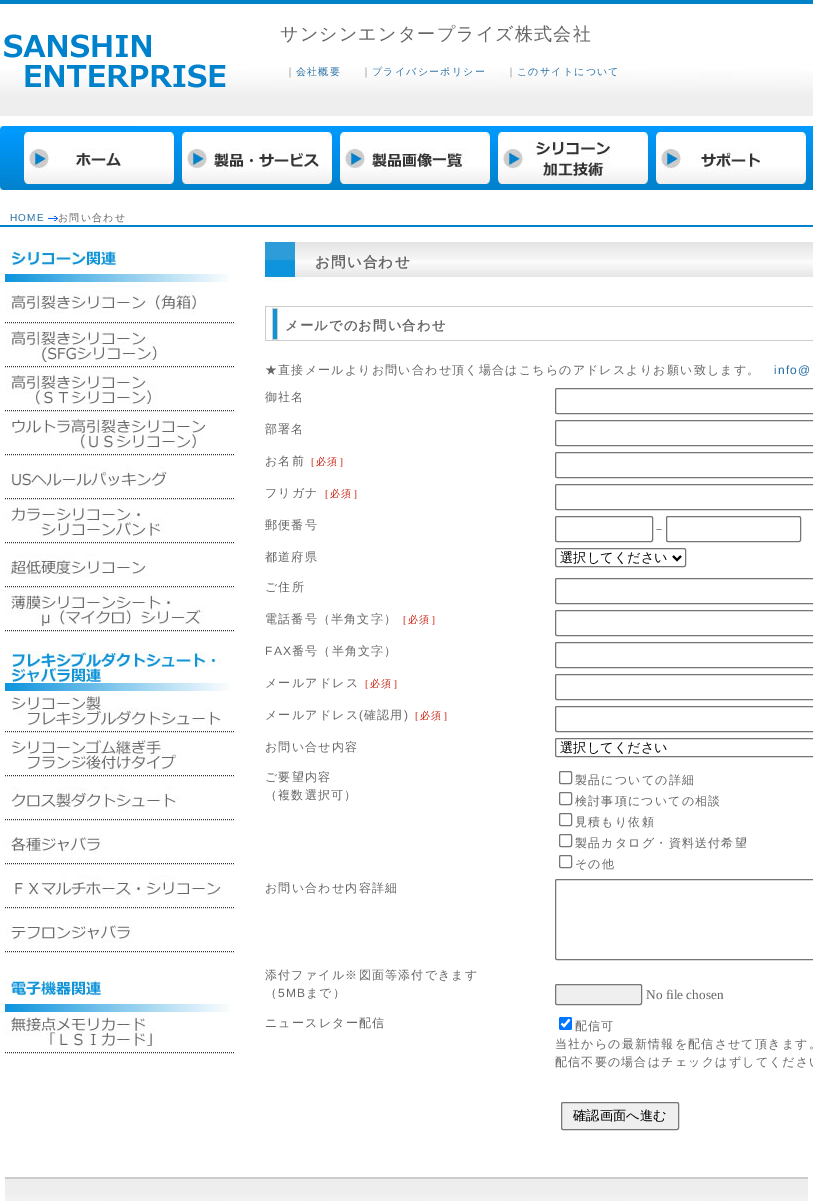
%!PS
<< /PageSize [813 1201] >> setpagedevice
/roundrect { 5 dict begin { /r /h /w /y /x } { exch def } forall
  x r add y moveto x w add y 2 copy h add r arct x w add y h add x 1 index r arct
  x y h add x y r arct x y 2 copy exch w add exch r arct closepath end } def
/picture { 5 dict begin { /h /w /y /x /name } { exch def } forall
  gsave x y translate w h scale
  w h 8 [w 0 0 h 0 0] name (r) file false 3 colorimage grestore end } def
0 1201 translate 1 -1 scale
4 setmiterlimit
1 setgray
0 0 813 1201 rectfill
(img1.rgb) 0 0 813 116 picture
(img2.rgb) 4 34 222 54 picture
/WenQuanYiZenHei-Medium [18 0 0 -18 0 0] selectfont
0.4 setgray
280 40 moveto 1.2 0 (サンシンエンタープライズ株式会社) ashow
/WenQuanYiZenHei-Medium [10 0 0 -10 0 0] selectfont
285 75 moveto 1.2 0 (｜) ashow
0.161 0.443 0.655 setrgbcolor
296 75 moveto 1.2 0 (会社概要) ashow
0.4 setgray
361 75 moveto 1.2 0 (｜) ashow
0.161 0.443 0.655 setrgbcolor
372 75 moveto 1.2 0 (プライバシーポリシー) ashow
0.4 setgray
506 75 moveto 1.2 0 (｜) ashow
0.161 0.443 0.655 setrgbcolor
517 75 moveto 1.2 0 (このサイトについて) ashow
(img3.rgb) 0 126 813 64 picture
(img4.rgb) 24 132 150 52 picture
(img5.rgb) 182 132 150 52 picture
(img6.rgb) 340 132 150 52 picture
(img7.rgb) 498 132 150 52 picture
(img8.rgb) 656 132 150 52 picture
0 0.506 0.8 setrgbcolor
0 225 813 2 rectfill
/LiberationSans-Regular [10 0 0 -10 0 0] selectfont
0.161 0.443 0.655 setrgbcolor
10 221 moveto 1.2 0 (HOME) ashow
(img9.rgb) 48 213 10 8 picture
/WenQuanYiZenHei-Medium [10 0 0 -10 0 0] selectfont
0.4 setgray
58 221 moveto 1.2 0 (お問い合わせ) ashow
(img10.rgb) 5 250 224 32 picture
0.2 setgray
[1 1] 0 setdash
newpath 5 322.5 moveto 235 322.5 lineto stroke
(img11.rgb) 5 290 192 24 picture
newpath 5 366.5 moveto 235 366.5 lineto stroke
(img12.rgb) 5 326 152 40 picture
newpath 5 410.5 moveto 235 410.5 lineto stroke
(img13.rgb) 5 370 152 40 picture
newpath 5 454.5 moveto 235 454.5 lineto stroke
(img14.rgb) 10 414 195 40 picture
newpath 5 498.5 moveto 235 498.5 lineto stroke
(img15.rgb) 9 466 158 24 picture
newpath 5 542.5 moveto 235 542.5 lineto stroke
(img16.rgb) 5 502 160 40 picture
newpath 5 586.5 moveto 235 586.5 lineto stroke
(img17.rgb) 5 554 144 24 picture
newpath 5 630.5 moveto 235 630.5 lineto stroke
(img18.rgb) 5 590 200 40 picture
(img19.rgb) 5 651 224 40 picture
newpath 5 731.5 moveto 235 731.5 lineto stroke
(img20.rgb) 7 691 214 40 picture
newpath 5 775.5 moveto 235 775.5 lineto stroke
(img21.rgb) 7 735 174 40 picture
newpath 5 819.5 moveto 235 819.5 lineto stroke
(img22.rgb) 5 787 176 24 picture
newpath 5 863.5 moveto 235 863.5 lineto stroke
(img23.rgb) 5 831 96 24 picture
newpath 5 907.5 moveto 235 907.5 lineto stroke
(img24.rgb) 15 875 206 24 picture
newpath 5 951.5 moveto 235 951.5 lineto stroke
(img25.rgb) 5 919 128 24 picture
(img26.rgb) 5 980 224 32 picture
newpath 5 1052.5 moveto 235 1052.5 lineto stroke
(img27.rgb) 5 1012 151 40 picture
(img28.rgb) 265 242 548 40 picture
/WenQuanYiZenHei-Bold [14.5 0 0 -14.5 0 0] selectfont
0.4 setgray
315 267 moveto 1.2 0 (お問い合わせ) ashow
(img29.rgb) 265 306 548 35 picture
/WenQuanYiZenHei-Bold [13.25 0 0 -13.25 0 0] selectfont
285 330 moveto 1.2 0 (メールでのお問い合わせ) ashow
/WenQuanYiZenHei-Medium [12 0 0 -12 0 0] selectfont
265 374 moveto 1.2 0 (★直接メールよりお問い合わせ頂く場合はこちらのアドレスよりお願い致します。) ashow
/LiberationSans-Regular [12 0 0 -12 0 0] selectfont
0.161 0.443 0.655 setrgbcolor
774 374 moveto 1.2 0 (info@) ashow
/WenQuanYiZenHei-Medium [12 0 0 -12 0 0] selectfont
0.4 setgray
265 401 moveto 1.2 0 (御社名) ashow
0.463 setgray
[] 0 setdash
555.5 388.5 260 25 1.5 roundrect stroke
0.4 setgray
265 433 moveto 1.2 0 (部署名) ashow
0.463 setgray
555.5 420.5 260 25 1.5 roundrect stroke
0.4 setgray
265 465 moveto 1.2 0 (お名前) ashow
/WenQuanYiZenHei-Medium [10 0 0 -10 0 0] selectfont
0.788 0.118 0.047 setrgbcolor
305 465 moveto 1.2 0 (［必須］) ashow
0.463 setgray
555.5 452.5 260 25 1.5 roundrect stroke
/WenQuanYiZenHei-Medium [12 0 0 -12 0 0] selectfont
0.4 setgray
265 497 moveto 1.2 0 (フリガナ) ashow
/WenQuanYiZenHei-Medium [10 0 0 -10 0 0] selectfont
0.788 0.118 0.047 setrgbcolor
319 497 moveto 1.2 0 (［必須］) ashow
0.463 setgray
555.5 484.5 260 25 1.5 roundrect stroke
/WenQuanYiZenHei-Medium [12 0 0 -12 0 0] selectfont
0.4 setgray
265 529 moveto 1.2 0 (郵便番号) ashow
0.463 setgray
555.5 516.5 97 25 1.5 roundrect stroke
0.4 setgray
653 533 moveto 1.2 0 (－) ashow
0.463 setgray
666.5 516.5 134 25 1.5 roundrect stroke
0.4 setgray
265 561 moveto 1.2 0 (都道府県) ashow
0.463 setgray
555.5 548.5 130 18 1.5 roundrect stroke
0 setgray
2 setlinewidth
newpath 673 556 moveto 677 560 lineto 681 556 lineto stroke
/WenQuanYiZenHei-Medium [13.25 0 0 -13.25 0 0] selectfont
560 562 moveto (選択してください) show
/WenQuanYiZenHei-Medium [12 0 0 -12 0 0] selectfont
0.4 setgray
265 591 moveto 1.2 0 (ご住所) ashow
0.463 setgray
1 setlinewidth
555.5 578.5 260 25 1.5 roundrect stroke
0.4 setgray
265 623 moveto 1.2 0 (電話番号（半角文字）) ashow
/WenQuanYiZenHei-Medium [10 0 0 -10 0 0] selectfont
0.788 0.118 0.047 setrgbcolor
397 623 moveto 1.2 0 (［必須］) ashow
0.463 setgray
555.5 610.5 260 25 1.5 roundrect stroke
/LiberationSans-Regular [12 0 0 -12 0 0] selectfont
0.4 setgray
265 655 moveto 1.2 0 (FAX) ashow
/WenQuanYiZenHei-Medium [12 0 0 -12 0 0] selectfont
292 655 moveto 1.2 0 (番号（半角文字）) ashow
0.463 setgray
555.5 642.5 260 25 1.5 roundrect stroke
0.4 setgray
265 687 moveto 1.2 0 (メールアドレス) ashow
/WenQuanYiZenHei-Medium [10 0 0 -10 0 0] selectfont
0.788 0.118 0.047 setrgbcolor
359 687 moveto 1.2 0 (［必須］) ashow
0.463 setgray
555.5 674.5 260 25 1.5 roundrect stroke
/WenQuanYiZenHei-Medium [12 0 0 -12 0 0] selectfont
0.4 setgray
265 719 moveto 1.2 0 (メールアドレス) ashow
/LiberationSans-Regular [12 0 0 -12 0 0] selectfont
359 719 moveto 1.2 0 (\() ashow
/WenQuanYiZenHei-Medium [12 0 0 -12 0 0] selectfont
364 719 moveto 1.2 0 (確認用) ashow
/LiberationSans-Regular [12 0 0 -12 0 0] selectfont
404 719 moveto 1.2 0 (\)) ashow
/WenQuanYiZenHei-Medium [10 0 0 -10 0 0] selectfont
0.788 0.118 0.047 setrgbcolor
409 719 moveto 1.2 0 (［必須］) ashow
0.463 setgray
555.5 706.5 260 25 1.5 roundrect stroke
/WenQuanYiZenHei-Medium [12 0 0 -12 0 0] selectfont
0.4 setgray
265 751 moveto 1.2 0 (お問い合せ内容) ashow
0.463 setgray
555.5 738.5 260 18 1.5 roundrect stroke
/WenQuanYiZenHei-Medium [13.25 0 0 -13.25 0 0] selectfont
0 setgray
560 752 moveto (選択してください) show
/WenQuanYiZenHei-Medium [12 0 0 -12 0 0] selectfont
0.4 setgray
265 781 moveto 1.2 0 (ご要望内容) ashow
265 799 moveto 1.2 0 (（複数選択可）) ashow
0.463 setgray
559.5 771.5 12 12 1.5 roundrect stroke
0.4 setgray
575 784 moveto 1.2 0 (製品についての詳細) ashow
0.463 setgray
559.5 792.5 12 12 1.5 roundrect stroke
0.4 setgray
575 805 moveto 1.2 0 (検討事項についての相談) ashow
0.463 setgray
559.5 813.5 12 12 1.5 roundrect stroke
0.4 setgray
575 826 moveto 1.2 0 (見積もり依頼) ashow
0.463 setgray
559.5 834.5 12 12 1.5 roundrect stroke
0.4 setgray
575 847 moveto 1.2 0 (製品カタログ・資料送付希望) ashow
0.463 setgray
559.5 855.5 12 12 1.5 roundrect stroke
0.4 setgray
575 868 moveto 1.2 0 (その他) ashow
265 892 moveto 1.2 0 (お問い合わせ内容詳細) ashow
0.463 setgray
555.5 879.5 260 80 1.5 roundrect stroke
0.4 setgray
265 979 moveto 1.2 0 (添付ファイル※図面等添付できます) ashow
265 997 moveto 1.2 0 (（) ashow
/LiberationSans-Regular [12 0 0 -12 0 0] selectfont
278 997 moveto 1.2 0 (5MB) ashow
/WenQuanYiZenHei-Medium [12 0 0 -12 0 0] selectfont
306 997 moveto 1.2 0 (まで）) ashow
0.937 setgray
555.5 984.5 86 20 1.5 roundrect gsave fill grestore
0.463 setgray
stroke
/LiberationSerif-Regular [13.25 0 0 -13.25 0 0] selectfont
0.4 setgray
646 999 moveto (No file chosen) show
/WenQuanYiZenHei-Medium [12 0 0 -12 0 0] selectfont
265 1027 moveto 1.2 0 (ニュースレター配信) ashow
0 0.459 1 setrgbcolor
559 1017 13 13 2 roundrect fill
1 setgray
2.1 setlinewidth
newpath 561.5 1023.5 moveto 564 1026 lineto 569.5 1019.5 lineto stroke
0.4 setgray
575 1030 moveto 1.2 0 (配信可) ashow
555 1048 moveto 1.2 0 (当社からの最新情報を配信させて頂きます。) ashow
555 1066 moveto 1.2 0 (配信不要の場合はチェックはずしてください) ashow
0.937 setgray
561.5 1102.5 117 27 1.5 roundrect gsave fill grestore
0.463 setgray
1 setlinewidth
stroke
/WenQuanYiZenHei-Medium [13.25 0 0 -13.25 0 0] selectfont
0 setgray
573 1120 moveto (確認画面へ進む) show
(img30.rgb) 5 1177 803 24 picture
showpage
